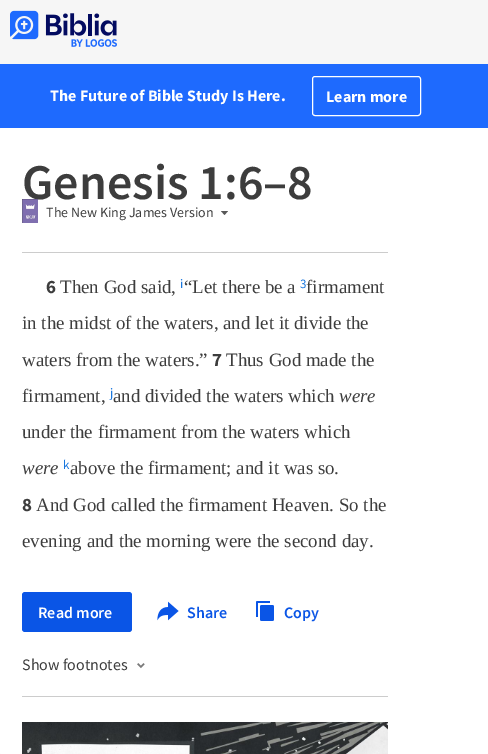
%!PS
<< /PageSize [488 754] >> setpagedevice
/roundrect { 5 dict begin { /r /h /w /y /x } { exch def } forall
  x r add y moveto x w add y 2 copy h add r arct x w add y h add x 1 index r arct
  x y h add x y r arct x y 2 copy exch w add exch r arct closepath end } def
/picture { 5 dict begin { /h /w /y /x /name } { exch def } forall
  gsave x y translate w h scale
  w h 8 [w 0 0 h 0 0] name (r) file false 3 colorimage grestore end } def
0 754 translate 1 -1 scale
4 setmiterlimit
0.965 setgray
0 0 488 754 rectfill
(img1.rgb) 10 10 107 37 picture
0.118 0.416 0.996 setrgbcolor
0 64 488 64 rectfill
/SourceSansPro-Bold [16 0 0 -16 0 0] selectfont
1 setgray
50 101 moveto (The Future of Bible Study Is Here.) show
312.5 76.5 108 39 2.5 roundrect stroke
326 102 moveto (Learn more) show
-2 128 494 626 4 roundrect fill
0.8 setgray
22 252 366 1 rectfill
/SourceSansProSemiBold-SemiBold [50 0 0 -50 0 0] selectfont
0.239 setgray
22 199 moveto (Genesis 1:6–8) show
(img2.rgb) 22 199 16 24 picture
/SourceSansPro-Regular [14 0 0 -14 0 0] selectfont
46 217 moveto (The New King James Version) show
0.345 setgray
newpath 224.5 215 moveto 228 211 lineto 221 211 lineto closepath eofill
/SourceSansPro-Bold [18.9 0 0 -18.9 0 0] selectfont
0.239 setgray
46 293 moveto (6) show
/LiberationSerif-Regular [18.9 0 0 -18.9 0 0] selectfont
60 293 moveto (Then God said,) show
/SourceSansPro-Regular [13 0 0 -13 0 0] selectfont
0.098 0.467 0.871 setrgbcolor
180 288 moveto (i) show
/LiberationSerif-Regular [18.9 0 0 -18.9 0 0] selectfont
0.239 setgray
184 293 moveto (“Let there be a) show
/SourceSansPro-Regular [13 0 0 -13 0 0] selectfont
0.098 0.467 0.871 setrgbcolor
300 288 moveto (3) show
/LiberationSerif-Regular [18.9 0 0 -18.9 0 0] selectfont
0.239 setgray
306 293 moveto (firmament) show
22 329 moveto (in the midst of the waters, and let it divide the) show
22 366 moveto (waters from the waters.”) show
/SourceSansPro-Bold [18.9 0 0 -18.9 0 0] selectfont
212 366 moveto (7) show
/LiberationSerif-Regular [18.9 0 0 -18.9 0 0] selectfont
226 366 moveto (Thus God made the) show
22 402 moveto (firmament,) show
/SourceSansPro-Regular [13 0 0 -13 0 0] selectfont
0.098 0.467 0.871 setrgbcolor
110 397 moveto (j) show
/LiberationSerif-Regular [18.9 0 0 -18.9 0 0] selectfont
0.239 setgray
113 402 moveto (and divided the waters which) show
/LiberationSerif-Italic [18.9 0 0 -18.9 0 0] selectfont
339 402 moveto (were) show
/LiberationSerif-Regular [18.9 0 0 -18.9 0 0] selectfont
22 438 moveto (under the firmament from the waters which) show
/LiberationSerif-Italic [18.9 0 0 -18.9 0 0] selectfont
22 474 moveto (were) show
/SourceSansPro-Regular [13 0 0 -13 0 0] selectfont
0.098 0.467 0.871 setrgbcolor
63 469 moveto (k) show
/LiberationSerif-Regular [18.9 0 0 -18.9 0 0] selectfont
0.239 setgray
70 474 moveto (above the firmament; and it was so.) show
/SourceSansPro-Bold [18.9 0 0 -18.9 0 0] selectfont
22 511 moveto (8) show
/LiberationSerif-Regular [18.9 0 0 -18.9 0 0] selectfont
36 511 moveto (And God called the firmament Heaven. So the) show
22 547 moveto (evening and the morning were the second day.) show
0.039 0.333 0.902 setrgbcolor
22 592 110 40 3 roundrect fill
/SourceSansProSemiBold-SemiBold [16 0 0 -16 0 0] selectfont
1 setgray
38 618 moveto (Read more) show
(img3.rgb) 157 601 22 20 picture
0.039 0.333 0.902 setrgbcolor
187 618 moveto (Share) show
(img4.rgb) 256 601 18 20 picture
284 618 moveto (Copy) show
/SourceSansPro-Regular [16 0 0 -16 0 0] selectfont
0.239 setgray
22 670 moveto (Show footnotes) show
(img5.rgb) 137 663 8 6 picture
0.8 setgray
22 696 366 1 rectfill
(img6.rgb) 22 722 366 32 picture
showpage
